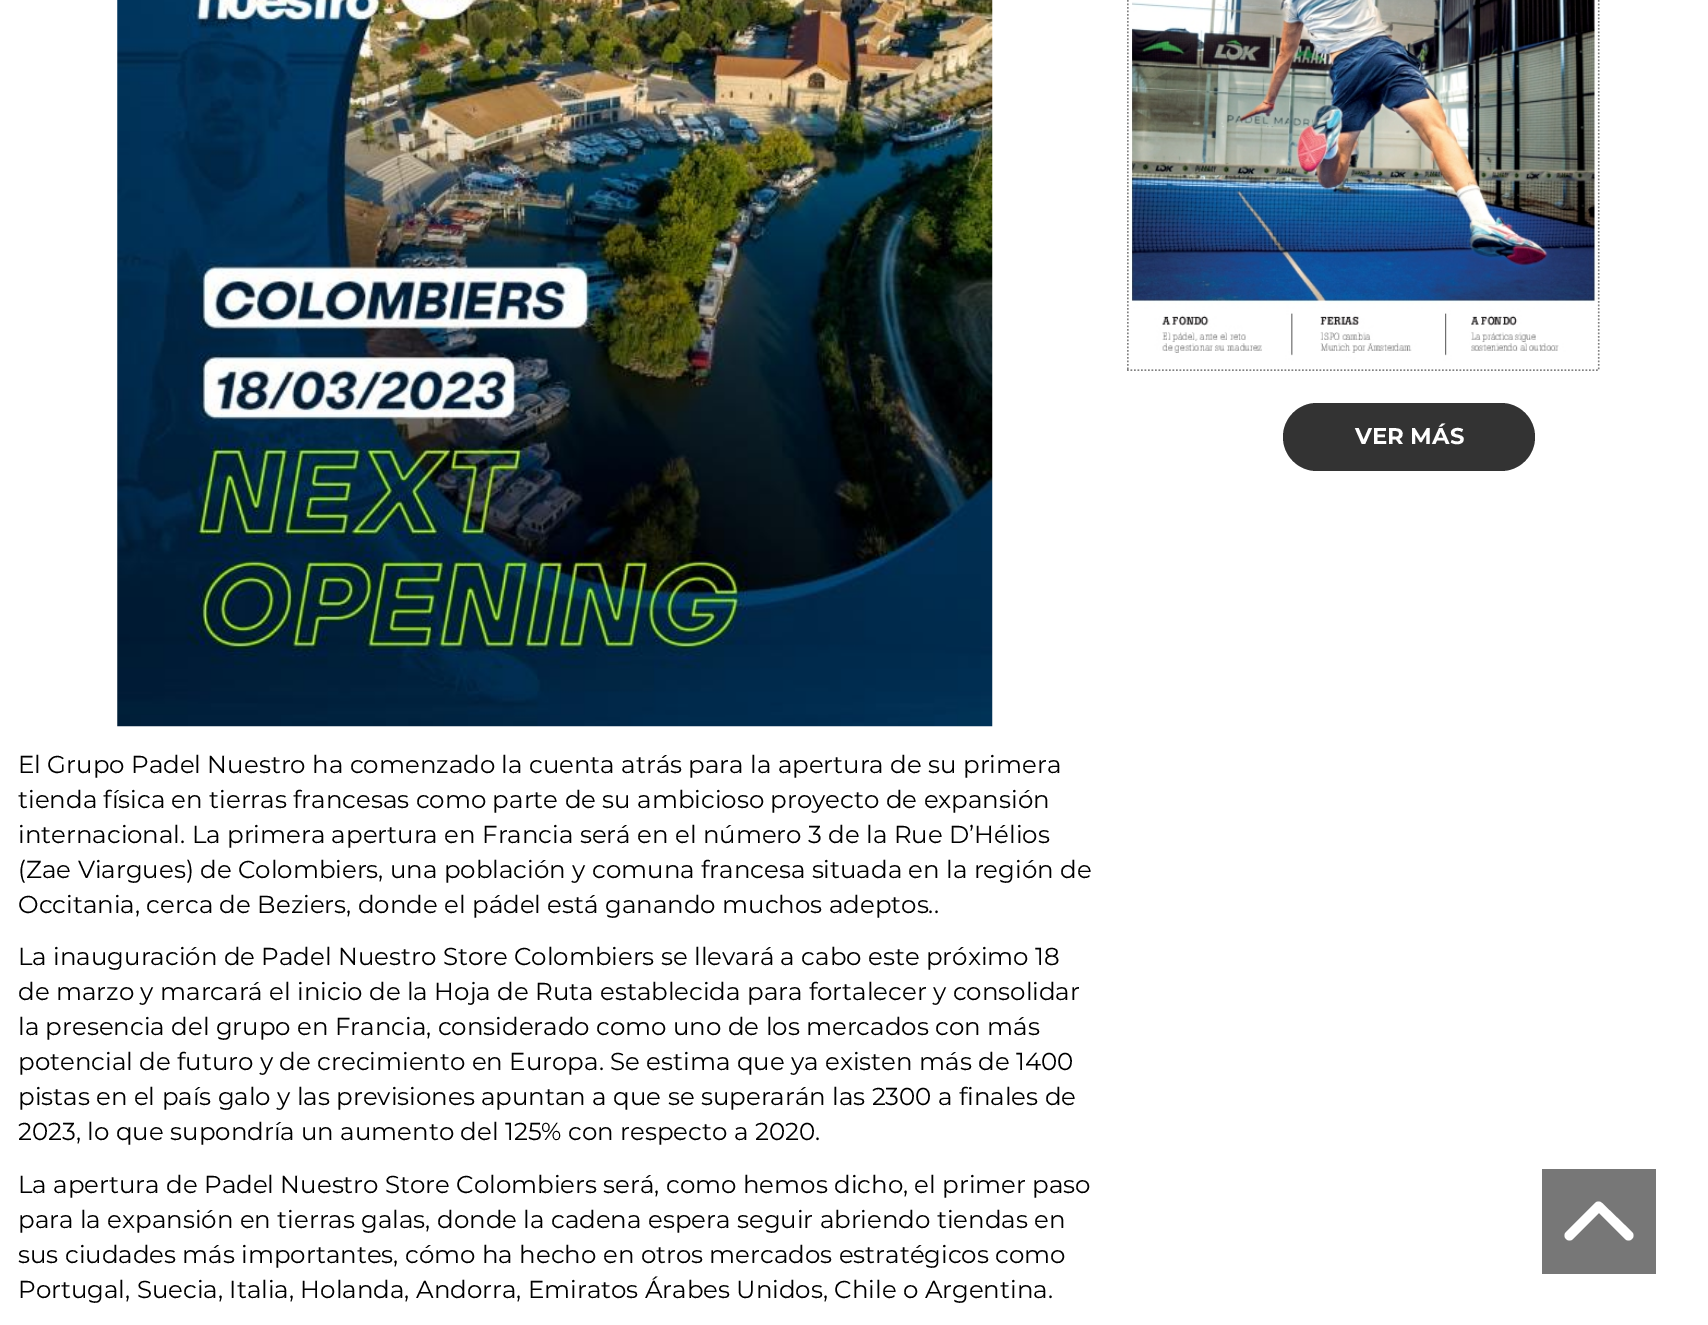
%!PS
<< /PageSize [1708 1325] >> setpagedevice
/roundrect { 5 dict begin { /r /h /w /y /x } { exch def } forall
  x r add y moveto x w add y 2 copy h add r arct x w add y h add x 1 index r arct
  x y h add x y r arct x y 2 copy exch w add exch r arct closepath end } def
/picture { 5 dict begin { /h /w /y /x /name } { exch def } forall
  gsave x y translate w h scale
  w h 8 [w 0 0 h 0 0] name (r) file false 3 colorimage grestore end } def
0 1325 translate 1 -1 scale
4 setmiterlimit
1 setgray
0 0 1708 1325 rectfill
0.502 setgray
1.8 setlinewidth
[1.75 1.75] 0 setdash
newpath 1598.5 -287 moveto 1598.5 371 lineto stroke
newpath 1127 370 moveto 1599.5 370 lineto stroke
newpath 1128 -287 moveto 1128 371 lineto stroke
(img1.rgb) 1128 0 470 370 picture
0.2 setgray
1283 403 252 68 34 roundrect fill
/Montserrat-Bold [22.75 0 0 -22.75 0 0] selectfont
1 setgray
1355 444 moveto (VER MÁS) show
(img2.rgb) 117 0 876 727 picture
/Montserrat-Regular [24.5 0 0 -24.5 0 0] selectfont
0 setgray
18 773 moveto (El Grupo Padel Nuestro ha comenzado la cuenta atrás para la apertura de su primera) show
18 808 moveto (tienda física en tierras francesas como parte de su ambicioso proyecto de expansión) show
18 843 moveto (internacional. La primera apertura en Francia será en el número 3 de la Rue D’Hélios) show
18 878 moveto (\(Zae Viargues\) de Colombiers, una población y comuna francesa situada en la región de) show
18 913 moveto (Occitania, cerca de Beziers, donde el pádel está ganando muchos adeptos..) show
18 965 moveto (La inauguración de Padel Nuestro Store Colombiers se llevará a cabo este próximo 18) show
18 1000 moveto (de marzo y marcará el inicio de la Hoja de Ruta establecida para fortalecer y consolidar) show
18 1035 moveto (la presencia del grupo en Francia, considerado como uno de los mercados con más) show
18 1070 moveto (potencial de futuro y de crecimiento en Europa. Se estima que ya existen más de 1400) show
18 1105 moveto (pistas en el país galo y las previsiones apuntan a que se superarán las 2300 a finales de) show
18 1140 moveto (2023, lo que supondría un aumento del 125% con respecto a 2020.) show
18 1193 moveto (La apertura de Padel Nuestro Store Colombiers será, como hemos dicho, el primer paso) show
18 1228 moveto (para la expansión en tierras galas, donde la cadena espera seguir abriendo tiendas en) show
18 1263 moveto (sus ciudades más importantes, cómo ha hecho en otros mercados estratégicos como) show
18 1298 moveto (Portugal, Suecia, Italia, Holanda, Andorra, Emiratos Árabes Unidos, Chile o Argentina.) show
0.467 setgray
1542 1169 114 105 rectfill
1 setgray
newpath 1595 1203 moveto 1597 1201 1600 1201 1602 1203 curveto 1632 1232 lineto 1634 1234 1634 1237 1632 1239 curveto 1630 1241 1627 1241 1625 1239 curveto 1599 1213 lineto 1573 1239 lineto 1571 1241 1568 1241 1566 1239 curveto 1564 1237 1564 1234 1566 1232 curveto closepath fill
showpage
